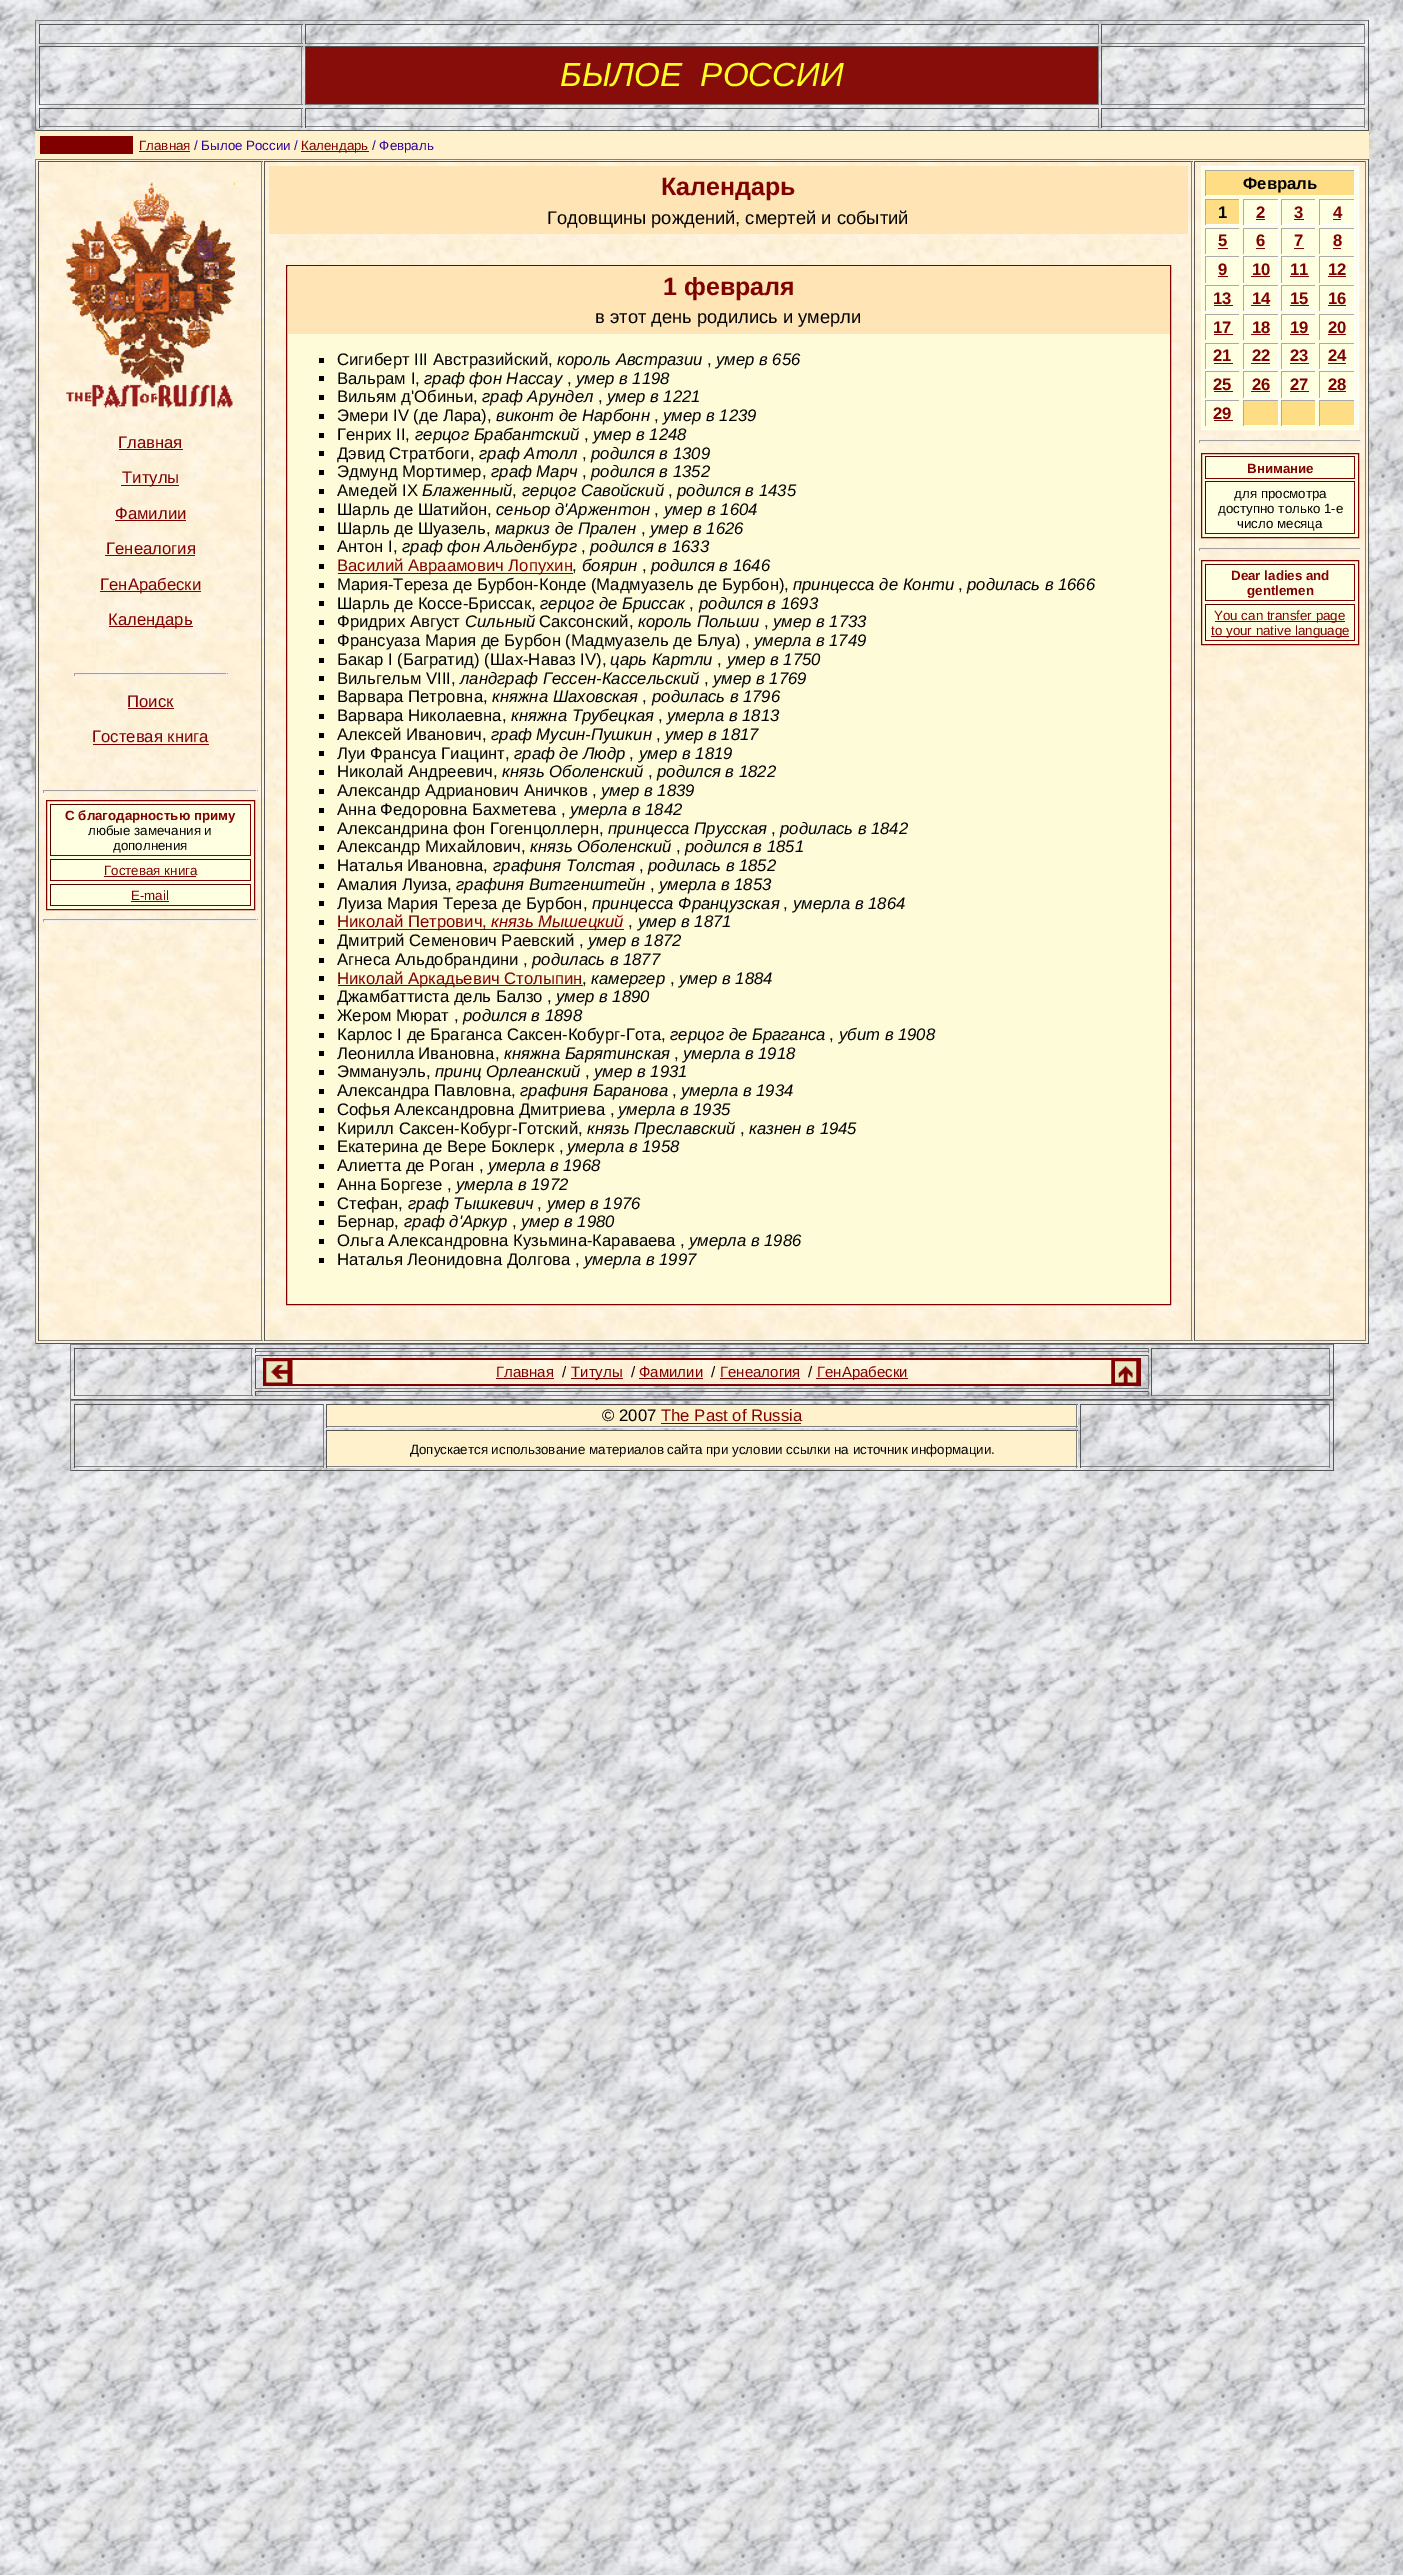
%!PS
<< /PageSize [1403 2575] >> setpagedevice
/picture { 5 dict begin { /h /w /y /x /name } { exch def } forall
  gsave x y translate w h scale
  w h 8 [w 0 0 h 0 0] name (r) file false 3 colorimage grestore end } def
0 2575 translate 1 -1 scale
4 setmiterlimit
1 setgray
0 0 1403 2575 rectfill
(img1.rgb) 0 0 1403 2575 picture
0.502 setgray
35 20 1334 1 rectfill
0.333 setgray
1368 20 1 111 rectfill
35 130 1334 1 rectfill
0.502 setgray
35 20 1 111 rectfill
0.333 setgray
39 24 264 1 rectfill
0.502 setgray
301 24 1 20 rectfill
39 43 264 1 rectfill
0.333 setgray
39 24 1 20 rectfill
305 24 794 1 rectfill
0.502 setgray
1098 24 1 20 rectfill
305 43 794 1 rectfill
0.333 setgray
305 24 1 20 rectfill
1101 24 264 1 rectfill
0.502 setgray
1364 24 1 20 rectfill
1101 43 264 1 rectfill
0.333 setgray
1101 24 1 20 rectfill
39 46 264 1 rectfill
0.502 setgray
301 46 1 59 rectfill
39 104 264 1 rectfill
0.333 setgray
39 46 1 59 rectfill
0.529 0.051 0.039 setrgbcolor
306 47 792 57 rectfill
0.333 setgray
305 46 794 1 rectfill
0.502 setgray
1098 46 1 59 rectfill
305 104 794 1 rectfill
0.333 setgray
305 46 1 59 rectfill
/LiberationSans-Italic [33.25 0 0 -33.25 0 0] selectfont
1 1 0.133 setrgbcolor
560 86 moveto (БЫЛОЕ  РОССИИ) show
0.333 setgray
1101 46 264 1 rectfill
0.502 setgray
1364 46 1 59 rectfill
1101 104 264 1 rectfill
0.333 setgray
1101 46 1 59 rectfill
39 108 264 1 rectfill
0.502 setgray
301 108 1 20 rectfill
39 126 264 1 rectfill
0.333 setgray
39 108 1 20 rectfill
305 108 794 1 rectfill
0.502 setgray
1098 108 1 20 rectfill
305 126 794 1 rectfill
0.333 setgray
305 108 1 20 rectfill
1101 108 264 1 rectfill
0.502 setgray
1364 108 1 20 rectfill
1101 126 264 1 rectfill
0.333 setgray
1101 108 1 20 rectfill
1 0.945 0.8 setrgbcolor
35 131 1334 28 rectfill
0.502 0 0 setrgbcolor
40 136 93 18 rectfill
/LiberationSans-Regular [13.35 0 0 -13.35 0 0] selectfont
139 150 moveto (Главная) show
139 151 51 1 rectfill
0.2 0 0.6 setrgbcolor
194 150 moveto (/ Былое России /) show
0.502 0 0 setrgbcolor
301 151 68 1 rectfill
301 150 moveto (Календарь) show
0.2 0 0.6 setrgbcolor
372 150 moveto (/ Февраль) show
(img2.rgb) 35 158 1334 1185 picture
0.502 setgray
35 159 1334 1 rectfill
0.333 setgray
1368 159 1 1185 rectfill
35 1343 1334 1 rectfill
0.502 setgray
35 159 1 1185 rectfill
0.333 setgray
38 161 225 1 rectfill
0.502 setgray
261 161 1 1180 rectfill
38 1340 225 1 rectfill
0.333 setgray
38 161 1 1180 rectfill
(img3.rgb) 66 182 169 226 picture
/LiberationSans-Regular [16.7 0 0 -16.7 0 0] selectfont
0.502 0 0 setrgbcolor
118 448 moveto (Главная) show
119 449 64 1 rectfill
121 485 58 1 rectfill
122 483 moveto (Титулы) show
115 519 moveto (Фамилии) show
115 520 71 1 rectfill
106 554 moveto (Генеалогия) show
105 555 90 1 rectfill
100 591 101 1 rectfill
100 590 moveto (ГенАрабески) show
109 626 84 1 rectfill
108 625 moveto (Календарь) show
0.624 setgray
74 673 154 1 rectfill
0.933 setgray
226 673 1 3 rectfill
74 674 154 1 rectfill
0.624 setgray
74 673 1 3 rectfill
0.502 0 0 setrgbcolor
127 707 moveto (Поиск) show
128 708 46 1 rectfill
92 742 moveto (Гостевая книга) show
93 744 116 1 rectfill
0.624 setgray
43 790 215 1 rectfill
0.933 setgray
256 790 1 3 rectfill
43 791 215 1 rectfill
0.624 setgray
43 790 1 3 rectfill
1 1 0.882 setrgbcolor
newpath 46.5 800.5 moveto 254.5 800.5 lineto 254.5 909.5 lineto 46.5 909.5 lineto closepath gsave fill grestore
0.502 0 0 setrgbcolor
stroke
0.333 0 0 setrgbcolor
50 804 201 1 rectfill
0.502 0 0 setrgbcolor
250 804 1 52 rectfill
50 855 201 1 rectfill
0.333 0 0 setrgbcolor
50 804 1 52 rectfill
/LiberationSans-Bold [13.35 0 0 -13.35 0 0] selectfont
0.502 0 0 setrgbcolor
65 820 moveto (С благодарностью приму) show
/LiberationSans-Regular [13.35 0 0 -13.35 0 0] selectfont
0 setgray
88 835 moveto (любые замечания и) show
113 850 moveto (дополнения) show
0.333 0 0 setrgbcolor
50 859 201 1 rectfill
0.502 0 0 setrgbcolor
250 859 1 22 rectfill
50 880 201 1 rectfill
0.333 0 0 setrgbcolor
50 859 1 22 rectfill
0.502 0 0 setrgbcolor
104 875 moveto (Гостевая книга) show
104 876 92 1 rectfill
0.333 0 0 setrgbcolor
50 884 201 1 rectfill
0.502 0 0 setrgbcolor
250 884 1 22 rectfill
50 905 201 1 rectfill
0.333 0 0 setrgbcolor
50 884 1 22 rectfill
0.502 0 0 setrgbcolor
131 900 moveto (E-mail) show
131 901 38 1 rectfill
0.624 setgray
43 919 215 1 rectfill
0.933 setgray
256 919 1 3 rectfill
43 920 215 1 rectfill
0.624 setgray
43 919 1 3 rectfill
0.333 setgray
264 161 929 1 rectfill
0.502 setgray
1191 161 1 1180 rectfill
264 1340 929 1 rectfill
0.333 setgray
264 161 1 1180 rectfill
1 0.894 0.71 setrgbcolor
269 166 919 68 rectfill
/LiberationSans-Bold [25 0 0 -25 0 0] selectfont
0.502 0 0 setrgbcolor
661 195 moveto (Календарь) show
/LiberationSans-Regular [18.3 0 0 -18.3 0 0] selectfont
0 setgray
547 224 moveto (Годовщины рождений, смертей и событий) show
0.996 0.984 0.847 setrgbcolor
newpath 286.5 265.5 moveto 1170.5 265.5 lineto 1170.5 1304.5 lineto 286.5 1304.5 lineto closepath gsave fill grestore
0.502 0 0 setrgbcolor
stroke
1 0.894 0.71 setrgbcolor
288 266 882 68 rectfill
/LiberationSans-Bold [25 0 0 -25 0 0] selectfont
0.502 0 0 setrgbcolor
663 295 moveto (1 февраля) show
/LiberationSans-Regular [18.3 0 0 -18.3 0 0] selectfont
0 setgray
595 323 moveto (в этот день родились и умерли) show
319 358 5 5 rectfill
/LiberationSans-Regular [16.7 0 0 -16.7 0 0] selectfont
337 365 moveto (Сигиберт III Австразийский,) show
/LiberationSans-Italic [16.7 0 0 -16.7 0 0] selectfont
557 365 moveto (король Австразии) show
716 365 moveto (умер в 656) show
/LiberationSans-Regular [16.7 0 0 -16.7 0 0] selectfont
707 365 moveto (,) show
319 376 5 5 rectfill
337 384 moveto (Вальрам I,) show
/LiberationSans-Italic [16.7 0 0 -16.7 0 0] selectfont
424 384 moveto (граф фон Нассау) show
576 384 moveto (умер в 1198) show
/LiberationSans-Regular [16.7 0 0 -16.7 0 0] selectfont
567 384 moveto (,) show
319 395 5 5 rectfill
337 402 moveto (Вильям д'Обиньи,) show
/LiberationSans-Italic [16.7 0 0 -16.7 0 0] selectfont
482 402 moveto (граф Арундел) show
607 402 moveto (умер в 1221) show
/LiberationSans-Regular [16.7 0 0 -16.7 0 0] selectfont
598 402 moveto (,) show
319 414 5 5 rectfill
337 421 moveto (Эмери IV \(де Лара\),) show
/LiberationSans-Italic [16.7 0 0 -16.7 0 0] selectfont
496 421 moveto (виконт де Нарбонн) show
663 421 moveto (умер в 1239) show
/LiberationSans-Regular [16.7 0 0 -16.7 0 0] selectfont
654 421 moveto (,) show
319 433 5 5 rectfill
337 440 moveto (Генрих II,) show
/LiberationSans-Italic [16.7 0 0 -16.7 0 0] selectfont
415 440 moveto (герцог Брабантский) show
593 440 moveto (умер в 1248) show
/LiberationSans-Regular [16.7 0 0 -16.7 0 0] selectfont
584 440 moveto (,) show
319 451 5 5 rectfill
337 459 moveto (Дэвид Стратбоги,) show
/LiberationSans-Italic [16.7 0 0 -16.7 0 0] selectfont
479 459 moveto (граф Атолл) show
591 459 moveto (родился в 1309) show
/LiberationSans-Regular [16.7 0 0 -16.7 0 0] selectfont
582 459 moveto (,) show
319 470 5 5 rectfill
337 477 moveto (Эдмунд Мортимер,) show
/LiberationSans-Italic [16.7 0 0 -16.7 0 0] selectfont
491 477 moveto (граф Марч) show
591 477 moveto (родился в 1352) show
/LiberationSans-Regular [16.7 0 0 -16.7 0 0] selectfont
582 477 moveto (,) show
319 489 5 5 rectfill
337 496 moveto (Амедей IX) show
/LiberationSans-Italic [16.7 0 0 -16.7 0 0] selectfont
422 496 moveto (Блаженный) show
522 496 moveto (герцог Савойский) show
677 496 moveto (родился в 1435) show
/LiberationSans-Regular [16.7 0 0 -16.7 0 0] selectfont
512 496 moveto (,) show
668 496 moveto (,) show
319 508 5 5 rectfill
337 515 moveto (Шарль де Шатийон,) show
/LiberationSans-Italic [16.7 0 0 -16.7 0 0] selectfont
496 515 moveto (сеньор д'Аржентон) show
664 515 moveto (умер в 1604) show
/LiberationSans-Regular [16.7 0 0 -16.7 0 0] selectfont
654 515 moveto (,) show
319 526 5 5 rectfill
337 534 moveto (Шарль де Шуазель,) show
/LiberationSans-Italic [16.7 0 0 -16.7 0 0] selectfont
495 534 moveto (маркиз де Прален) show
650 534 moveto (умер в 1626) show
/LiberationSans-Regular [16.7 0 0 -16.7 0 0] selectfont
641 534 moveto (,) show
319 545 5 5 rectfill
337 552 moveto (Антон I,) show
/LiberationSans-Italic [16.7 0 0 -16.7 0 0] selectfont
402 552 moveto (граф фон Альденбург) show
590 552 moveto (родился в 1633) show
/LiberationSans-Regular [16.7 0 0 -16.7 0 0] selectfont
581 552 moveto (,) show
319 564 5 5 rectfill
0.502 0 0 setrgbcolor
338 573 235 1 rectfill
337 571 moveto (Василий Авраамович Лопухин) show
/LiberationSans-Italic [16.7 0 0 -16.7 0 0] selectfont
0 setgray
582 571 moveto (боярин) show
651 571 moveto (родился в 1646) show
/LiberationSans-Regular [16.7 0 0 -16.7 0 0] selectfont
572 571 moveto (,) show
642 571 moveto (,) show
319 583 5 5 rectfill
337 590 moveto (Мария-Тереза де Бурбон-Конде \(Мадмуазель де Бурбон\),) show
/LiberationSans-Italic [16.7 0 0 -16.7 0 0] selectfont
793 590 moveto (принцесса де Конти) show
967 590 moveto (родилась в 1666) show
/LiberationSans-Regular [16.7 0 0 -16.7 0 0] selectfont
958 590 moveto (,) show
319 601 5 5 rectfill
337 609 moveto (Шарль де Коссе-Бриссак,) show
/LiberationSans-Italic [16.7 0 0 -16.7 0 0] selectfont
540 609 moveto (герцог де Бриссак) show
699 609 moveto (родился в 1693) show
/LiberationSans-Regular [16.7 0 0 -16.7 0 0] selectfont
689 609 moveto (,) show
319 620 5 5 rectfill
337 627 moveto (Фридрих Август) show
/LiberationSans-Italic [16.7 0 0 -16.7 0 0] selectfont
465 627 moveto (Сильный) show
/LiberationSans-Regular [16.7 0 0 -16.7 0 0] selectfont
539 627 moveto (Саксонский,) show
/LiberationSans-Italic [16.7 0 0 -16.7 0 0] selectfont
638 627 moveto (король Польши) show
773 627 moveto (умер в 1733) show
/LiberationSans-Regular [16.7 0 0 -16.7 0 0] selectfont
764 627 moveto (,) show
319 639 5 5 rectfill
337 646 moveto (Франсуаза Мария де Бурбон \(Мадмуазель де Блуа\) ,) show
/LiberationSans-Italic [16.7 0 0 -16.7 0 0] selectfont
754 646 moveto (умерла в 1749) show
319 658 5 5 rectfill
/LiberationSans-Regular [16.7 0 0 -16.7 0 0] selectfont
337 665 moveto (Бакар I \(Багратид\) \(Шах-Наваз IV\),) show
/LiberationSans-Italic [16.7 0 0 -16.7 0 0] selectfont
610 665 moveto (царь Картли) show
727 665 moveto (умер в 1750) show
/LiberationSans-Regular [16.7 0 0 -16.7 0 0] selectfont
717 665 moveto (,) show
319 676 5 5 rectfill
337 684 moveto (Вильгельм VIII,) show
/LiberationSans-Italic [16.7 0 0 -16.7 0 0] selectfont
460 684 moveto (ландграф Гессен-Кассельский) show
713 684 moveto (умер в 1769) show
/LiberationSans-Regular [16.7 0 0 -16.7 0 0] selectfont
704 684 moveto (,) show
319 695 5 5 rectfill
337 702 moveto (Варвара Петровна,) show
/LiberationSans-Italic [16.7 0 0 -16.7 0 0] selectfont
492 702 moveto (княжна Шаховская) show
652 702 moveto (родилась в 1796) show
/LiberationSans-Regular [16.7 0 0 -16.7 0 0] selectfont
642 702 moveto (,) show
319 714 5 5 rectfill
337 721 moveto (Варвара Николаевна,) show
/LiberationSans-Italic [16.7 0 0 -16.7 0 0] selectfont
511 721 moveto (княжна Трубецкая) show
667 721 moveto (умерла в 1813) show
/LiberationSans-Regular [16.7 0 0 -16.7 0 0] selectfont
658 721 moveto (,) show
319 733 5 5 rectfill
337 740 moveto (Алексей Иванович,) show
/LiberationSans-Italic [16.7 0 0 -16.7 0 0] selectfont
491 740 moveto (граф Мусин-Пушкин) show
665 740 moveto (умер в 1817) show
/LiberationSans-Regular [16.7 0 0 -16.7 0 0] selectfont
656 740 moveto (,) show
319 751 5 5 rectfill
337 759 moveto (Луи Франсуа Гиацинт,) show
/LiberationSans-Italic [16.7 0 0 -16.7 0 0] selectfont
514 759 moveto (граф де Людр) show
639 759 moveto (умер в 1819) show
/LiberationSans-Regular [16.7 0 0 -16.7 0 0] selectfont
629 759 moveto (,) show
319 770 5 5 rectfill
337 777 moveto (Николай Андреевич,) show
/LiberationSans-Italic [16.7 0 0 -16.7 0 0] selectfont
502 777 moveto (князь Оболенский) show
657 777 moveto (родился в 1822) show
/LiberationSans-Regular [16.7 0 0 -16.7 0 0] selectfont
648 777 moveto (,) show
319 789 5 5 rectfill
337 796 moveto (Александр Адрианович Аничков ,) show
/LiberationSans-Italic [16.7 0 0 -16.7 0 0] selectfont
601 796 moveto (умер в 1839) show
319 808 5 5 rectfill
/LiberationSans-Regular [16.7 0 0 -16.7 0 0] selectfont
337 815 moveto (Анна Федоровна Бахметева ,) show
/LiberationSans-Italic [16.7 0 0 -16.7 0 0] selectfont
570 815 moveto (умерла в 1842) show
319 826 5 5 rectfill
/LiberationSans-Regular [16.7 0 0 -16.7 0 0] selectfont
337 834 moveto (Александрина фон Гогенцоллерн,) show
/LiberationSans-Italic [16.7 0 0 -16.7 0 0] selectfont
608 834 moveto (принцесса Прусская) show
780 834 moveto (родилась в 1842) show
/LiberationSans-Regular [16.7 0 0 -16.7 0 0] selectfont
771 834 moveto (,) show
319 845 5 5 rectfill
337 852 moveto (Александр Михайлович,) show
/LiberationSans-Italic [16.7 0 0 -16.7 0 0] selectfont
530 852 moveto (князь Оболенский) show
685 852 moveto (родился в 1851) show
/LiberationSans-Regular [16.7 0 0 -16.7 0 0] selectfont
676 852 moveto (,) show
319 864 5 5 rectfill
337 871 moveto (Наталья Ивановна,) show
/LiberationSans-Italic [16.7 0 0 -16.7 0 0] selectfont
493 871 moveto (графиня Толстая) show
648 871 moveto (родилась в 1852) show
/LiberationSans-Regular [16.7 0 0 -16.7 0 0] selectfont
639 871 moveto (,) show
319 883 5 5 rectfill
337 890 moveto (Амалия Луиза,) show
/LiberationSans-Italic [16.7 0 0 -16.7 0 0] selectfont
456 890 moveto (графиня Витгенштейн) show
659 890 moveto (умерла в 1853) show
/LiberationSans-Regular [16.7 0 0 -16.7 0 0] selectfont
650 890 moveto (,) show
319 901 5 5 rectfill
337 909 moveto (Луиза Мария Тереза де Бурбон,) show
/LiberationSans-Italic [16.7 0 0 -16.7 0 0] selectfont
592 909 moveto (принцесса Французская) show
793 909 moveto (умерла в 1864) show
/LiberationSans-Regular [16.7 0 0 -16.7 0 0] selectfont
783 909 moveto (,) show
319 920 5 5 rectfill
0.502 0 0 setrgbcolor
338 929 286 1 rectfill
337 927 moveto (Николай Петрович,) show
/LiberationSans-Italic [16.7 0 0 -16.7 0 0] selectfont
491 927 moveto (князь Мышецкий) show
0 setgray
638 927 moveto (умер в 1871) show
/LiberationSans-Regular [16.7 0 0 -16.7 0 0] selectfont
628 927 moveto (,) show
319 939 5 5 rectfill
337 946 moveto (Дмитрий Семенович Раевский ,) show
/LiberationSans-Italic [16.7 0 0 -16.7 0 0] selectfont
588 946 moveto (умер в 1872) show
319 958 5 5 rectfill
/LiberationSans-Regular [16.7 0 0 -16.7 0 0] selectfont
337 965 moveto (Агнеса Альдобрандини ,) show
/LiberationSans-Italic [16.7 0 0 -16.7 0 0] selectfont
532 965 moveto (родилась в 1877) show
319 976 5 5 rectfill
0.502 0 0 setrgbcolor
338 985 245 1 rectfill
/LiberationSans-Regular [16.7 0 0 -16.7 0 0] selectfont
337 984 moveto (Николай Аркадьевич Столыпин) show
/LiberationSans-Italic [16.7 0 0 -16.7 0 0] selectfont
0 setgray
591 984 moveto (камергер) show
679 984 moveto (умер в 1884) show
/LiberationSans-Regular [16.7 0 0 -16.7 0 0] selectfont
582 984 moveto (,) show
670 984 moveto (,) show
319 995 5 5 rectfill
337 1002 moveto (Джамбаттиста дель Балзо ,) show
/LiberationSans-Italic [16.7 0 0 -16.7 0 0] selectfont
556 1002 moveto (умер в 1890) show
319 1014 5 5 rectfill
/LiberationSans-Regular [16.7 0 0 -16.7 0 0] selectfont
337 1021 moveto (Жером Мюрат ,) show
/LiberationSans-Italic [16.7 0 0 -16.7 0 0] selectfont
463 1021 moveto (родился в 1898) show
319 1033 5 5 rectfill
/LiberationSans-Regular [16.7 0 0 -16.7 0 0] selectfont
337 1040 moveto (Карлос I де Браганса Саксен-Кобург-Гота,) show
/LiberationSans-Italic [16.7 0 0 -16.7 0 0] selectfont
670 1040 moveto (герцог де Браганса) show
839 1040 moveto (убит в 1908) show
/LiberationSans-Regular [16.7 0 0 -16.7 0 0] selectfont
829 1040 moveto (,) show
319 1051 5 5 rectfill
337 1059 moveto (Леонилла Ивановна,) show
/LiberationSans-Italic [16.7 0 0 -16.7 0 0] selectfont
504 1059 moveto (княжна Барятинская) show
683 1059 moveto (умерла в 1918) show
/LiberationSans-Regular [16.7 0 0 -16.7 0 0] selectfont
674 1059 moveto (,) show
319 1070 5 5 rectfill
337 1077 moveto (Эммануэль,) show
/LiberationSans-Italic [16.7 0 0 -16.7 0 0] selectfont
435 1077 moveto (принц Орлеанский) show
594 1077 moveto (умер в 1931) show
/LiberationSans-Regular [16.7 0 0 -16.7 0 0] selectfont
585 1077 moveto (,) show
319 1089 5 5 rectfill
337 1096 moveto (Александра Павловна,) show
/LiberationSans-Italic [16.7 0 0 -16.7 0 0] selectfont
520 1096 moveto (графиня Баранова) show
681 1096 moveto (умерла в 1934) show
/LiberationSans-Regular [16.7 0 0 -16.7 0 0] selectfont
672 1096 moveto (,) show
319 1108 5 5 rectfill
337 1115 moveto (Софья Александровна Дмитриева ,) show
/LiberationSans-Italic [16.7 0 0 -16.7 0 0] selectfont
618 1115 moveto (умерла в 1935) show
319 1126 5 5 rectfill
/LiberationSans-Regular [16.7 0 0 -16.7 0 0] selectfont
337 1134 moveto (Кирилл Саксен-Кобург-Готский,) show
/LiberationSans-Italic [16.7 0 0 -16.7 0 0] selectfont
587 1134 moveto (князь Преславский) show
749 1134 moveto (казнен в 1945) show
/LiberationSans-Regular [16.7 0 0 -16.7 0 0] selectfont
740 1134 moveto (,) show
319 1145 5 5 rectfill
337 1152 moveto (Екатерина де Вере Боклерк ,) show
/LiberationSans-Italic [16.7 0 0 -16.7 0 0] selectfont
567 1152 moveto (умерла в 1958) show
319 1164 5 5 rectfill
/LiberationSans-Regular [16.7 0 0 -16.7 0 0] selectfont
337 1171 moveto (Алиетта де Роган ,) show
/LiberationSans-Italic [16.7 0 0 -16.7 0 0] selectfont
488 1171 moveto (умерла в 1968) show
319 1183 5 5 rectfill
/LiberationSans-Regular [16.7 0 0 -16.7 0 0] selectfont
337 1190 moveto (Анна Боргезе ,) show
/LiberationSans-Italic [16.7 0 0 -16.7 0 0] selectfont
456 1190 moveto (умерла в 1972) show
319 1201 5 5 rectfill
/LiberationSans-Regular [16.7 0 0 -16.7 0 0] selectfont
337 1209 moveto (Стефан,) show
/LiberationSans-Italic [16.7 0 0 -16.7 0 0] selectfont
408 1209 moveto (граф Тышкевич) show
547 1209 moveto (умер в 1976) show
/LiberationSans-Regular [16.7 0 0 -16.7 0 0] selectfont
537 1209 moveto (,) show
319 1220 5 5 rectfill
337 1227 moveto (Бернар,) show
/LiberationSans-Italic [16.7 0 0 -16.7 0 0] selectfont
404 1227 moveto (граф д'Аркур) show
521 1227 moveto (умер в 1980) show
/LiberationSans-Regular [16.7 0 0 -16.7 0 0] selectfont
512 1227 moveto (,) show
319 1239 5 5 rectfill
337 1246 moveto (Ольга Александровна Кузьмина-Караваева ,) show
/LiberationSans-Italic [16.7 0 0 -16.7 0 0] selectfont
689 1246 moveto (умерла в 1986) show
319 1258 5 5 rectfill
/LiberationSans-Regular [16.7 0 0 -16.7 0 0] selectfont
337 1265 moveto (Наталья Леонидовна Долгова ,) show
/LiberationSans-Italic [16.7 0 0 -16.7 0 0] selectfont
584 1265 moveto (умерла в 1997) show
0.333 setgray
1194 161 172 1 rectfill
0.502 setgray
1365 161 1 1180 rectfill
1194 1340 172 1 rectfill
0.333 setgray
1194 161 1 1180 rectfill
1 1 0.882 setrgbcolor
newpath 1201.5 166.5 moveto 1358.5 166.5 lineto 1358.5 429.5 lineto 1201.5 429.5 lineto closepath gsave fill grestore
1 setgray
stroke
1 0.867 0.518 setrgbcolor
1206 171 148 24 rectfill
0.667 setgray
1205 170 150 1 rectfill
1 setgray
1354 170 1 26 rectfill
1205 195 150 1 rectfill
0.667 setgray
1205 170 1 26 rectfill
/LiberationSans-Bold [16.7 0 0 -16.7 0 0] selectfont
0 setgray
1243 189 moveto (Февраль) show
1 0.867 0.518 setrgbcolor
1206 200 33 24 rectfill
0.667 setgray
1205 199 35 1 rectfill
1 setgray
1239 199 1 26 rectfill
1205 224 35 1 rectfill
0.667 setgray
1205 199 1 26 rectfill
0 setgray
1218 218 moveto (1) show
0.667 setgray
1243 199 36 1 rectfill
1 setgray
1278 199 1 26 rectfill
1243 224 36 1 rectfill
0.667 setgray
1243 199 1 26 rectfill
0.502 0 0 setrgbcolor
1256 218 moveto (2) show
1256 219 9 1 rectfill
0.667 setgray
1281 199 35 1 rectfill
1 setgray
1315 199 1 26 rectfill
1281 224 35 1 rectfill
0.667 setgray
1281 199 1 26 rectfill
0.502 0 0 setrgbcolor
1294 218 moveto (3) show
1294 219 10 1 rectfill
0.667 setgray
1319 199 36 1 rectfill
1 setgray
1354 199 1 26 rectfill
1319 224 36 1 rectfill
0.667 setgray
1319 199 1 26 rectfill
0.502 0 0 setrgbcolor
1333 218 moveto (4) show
1333 219 8 1 rectfill
0.667 setgray
1205 228 35 1 rectfill
1 setgray
1239 228 1 26 rectfill
1205 253 35 1 rectfill
0.667 setgray
1205 228 1 26 rectfill
0.502 0 0 setrgbcolor
1218 246 moveto (5) show
1218 248 10 1 rectfill
0.667 setgray
1243 228 36 1 rectfill
1 setgray
1278 228 1 26 rectfill
1243 253 36 1 rectfill
0.667 setgray
1243 228 1 26 rectfill
0.502 0 0 setrgbcolor
1256 246 moveto (6) show
1256 248 9 1 rectfill
0.667 setgray
1281 228 35 1 rectfill
1 setgray
1315 228 1 26 rectfill
1281 253 35 1 rectfill
0.667 setgray
1281 228 1 26 rectfill
0.502 0 0 setrgbcolor
1294 246 moveto (7) show
1294 248 10 1 rectfill
0.667 setgray
1319 228 36 1 rectfill
1 setgray
1354 228 1 26 rectfill
1319 253 36 1 rectfill
0.667 setgray
1319 228 1 26 rectfill
0.502 0 0 setrgbcolor
1333 246 moveto (8) show
1333 248 8 1 rectfill
0.667 setgray
1205 256 35 1 rectfill
1 setgray
1239 256 1 27 rectfill
1205 281 35 1 rectfill
0.667 setgray
1205 256 1 27 rectfill
0.502 0 0 setrgbcolor
1218 275 moveto (9) show
1218 276 10 1 rectfill
0.667 setgray
1243 256 36 1 rectfill
1 setgray
1278 256 1 27 rectfill
1243 281 36 1 rectfill
0.667 setgray
1243 256 1 27 rectfill
0.502 0 0 setrgbcolor
1252 275 moveto (10) show
1251 276 19 1 rectfill
0.667 setgray
1281 256 35 1 rectfill
1 setgray
1315 256 1 27 rectfill
1281 281 35 1 rectfill
0.667 setgray
1281 256 1 27 rectfill
0.502 0 0 setrgbcolor
1290 275 moveto (11) show
1290 276 19 1 rectfill
0.667 setgray
1319 256 36 1 rectfill
1 setgray
1354 256 1 27 rectfill
1319 281 36 1 rectfill
0.667 setgray
1319 256 1 27 rectfill
0.502 0 0 setrgbcolor
1328 275 moveto (12) show
1328 276 18 1 rectfill
0.667 setgray
1205 285 35 1 rectfill
1 setgray
1239 285 1 26 rectfill
1205 310 35 1 rectfill
0.667 setgray
1205 285 1 26 rectfill
0.502 0 0 setrgbcolor
1213 304 moveto (13) show
1214 305 19 1 rectfill
0.667 setgray
1243 285 36 1 rectfill
1 setgray
1278 285 1 26 rectfill
1243 310 36 1 rectfill
0.667 setgray
1243 285 1 26 rectfill
0.502 0 0 setrgbcolor
1252 304 moveto (14) show
1251 305 19 1 rectfill
0.667 setgray
1281 285 35 1 rectfill
1 setgray
1315 285 1 26 rectfill
1281 310 35 1 rectfill
0.667 setgray
1281 285 1 26 rectfill
0.502 0 0 setrgbcolor
1290 304 moveto (15) show
1290 305 19 1 rectfill
0.667 setgray
1319 285 36 1 rectfill
1 setgray
1354 285 1 26 rectfill
1319 310 36 1 rectfill
0.667 setgray
1319 285 1 26 rectfill
0.502 0 0 setrgbcolor
1328 304 moveto (16) show
1328 305 18 1 rectfill
0.667 setgray
1205 314 35 1 rectfill
1 setgray
1239 314 1 26 rectfill
1205 339 35 1 rectfill
0.667 setgray
1205 314 1 26 rectfill
0.502 0 0 setrgbcolor
1213 333 moveto (17) show
1214 334 19 1 rectfill
0.667 setgray
1243 314 36 1 rectfill
1 setgray
1278 314 1 26 rectfill
1243 339 36 1 rectfill
0.667 setgray
1243 314 1 26 rectfill
0.502 0 0 setrgbcolor
1252 333 moveto (18) show
1251 334 19 1 rectfill
0.667 setgray
1281 314 35 1 rectfill
1 setgray
1315 314 1 26 rectfill
1281 339 35 1 rectfill
0.667 setgray
1281 314 1 26 rectfill
0.502 0 0 setrgbcolor
1290 333 moveto (19) show
1290 334 19 1 rectfill
0.667 setgray
1319 314 36 1 rectfill
1 setgray
1354 314 1 26 rectfill
1319 339 36 1 rectfill
0.667 setgray
1319 314 1 26 rectfill
0.502 0 0 setrgbcolor
1328 333 moveto (20) show
1328 334 18 1 rectfill
0.667 setgray
1205 343 35 1 rectfill
1 setgray
1239 343 1 26 rectfill
1205 368 35 1 rectfill
0.667 setgray
1205 343 1 26 rectfill
0.502 0 0 setrgbcolor
1213 361 moveto (21) show
1214 363 19 1 rectfill
0.667 setgray
1243 343 36 1 rectfill
1 setgray
1278 343 1 26 rectfill
1243 368 36 1 rectfill
0.667 setgray
1243 343 1 26 rectfill
0.502 0 0 setrgbcolor
1252 361 moveto (22) show
1251 363 19 1 rectfill
0.667 setgray
1281 343 35 1 rectfill
1 setgray
1315 343 1 26 rectfill
1281 368 35 1 rectfill
0.667 setgray
1281 343 1 26 rectfill
0.502 0 0 setrgbcolor
1290 361 moveto (23) show
1290 363 19 1 rectfill
0.667 setgray
1319 343 36 1 rectfill
1 setgray
1354 343 1 26 rectfill
1319 368 36 1 rectfill
0.667 setgray
1319 343 1 26 rectfill
0.502 0 0 setrgbcolor
1328 361 moveto (24) show
1328 363 18 1 rectfill
0.667 setgray
1205 371 35 1 rectfill
1 setgray
1239 371 1 27 rectfill
1205 396 35 1 rectfill
0.667 setgray
1205 371 1 27 rectfill
0.502 0 0 setrgbcolor
1213 390 moveto (25) show
1214 391 19 1 rectfill
0.667 setgray
1243 371 36 1 rectfill
1 setgray
1278 371 1 27 rectfill
1243 396 36 1 rectfill
0.667 setgray
1243 371 1 27 rectfill
0.502 0 0 setrgbcolor
1252 390 moveto (26) show
1251 391 19 1 rectfill
0.667 setgray
1281 371 35 1 rectfill
1 setgray
1315 371 1 27 rectfill
1281 396 35 1 rectfill
0.667 setgray
1281 371 1 27 rectfill
0.502 0 0 setrgbcolor
1290 390 moveto (27) show
1290 391 19 1 rectfill
0.667 setgray
1319 371 36 1 rectfill
1 setgray
1354 371 1 27 rectfill
1319 396 36 1 rectfill
0.667 setgray
1319 371 1 27 rectfill
0.502 0 0 setrgbcolor
1328 390 moveto (28) show
1328 391 18 1 rectfill
0.667 setgray
1205 400 35 1 rectfill
1 setgray
1239 400 1 26 rectfill
1205 425 35 1 rectfill
0.667 setgray
1205 400 1 26 rectfill
0.502 0 0 setrgbcolor
1213 419 moveto (29) show
1214 420 19 1 rectfill
1 0.867 0.518 setrgbcolor
1244 401 34 24 rectfill
0.667 setgray
1243 400 36 1 rectfill
1 setgray
1278 400 1 26 rectfill
1243 425 36 1 rectfill
0.667 setgray
1243 400 1 26 rectfill
1 0.867 0.518 setrgbcolor
1282 401 33 24 rectfill
0.667 setgray
1281 400 35 1 rectfill
1 setgray
1315 400 1 26 rectfill
1281 425 35 1 rectfill
0.667 setgray
1281 400 1 26 rectfill
1 0.867 0.518 setrgbcolor
1320 401 34 24 rectfill
0.667 setgray
1319 400 36 1 rectfill
1 setgray
1354 400 1 26 rectfill
1319 425 36 1 rectfill
0.667 setgray
1319 400 1 26 rectfill
0.624 setgray
1199 440 162 1 rectfill
0.933 setgray
1360 440 1 3 rectfill
1199 441 162 1 rectfill
0.624 setgray
1199 440 1 3 rectfill
1 1 0.882 setrgbcolor
newpath 1201.5 453.5 moveto 1358.5 453.5 lineto 1358.5 537.5 lineto 1201.5 537.5 lineto closepath gsave fill grestore
0.502 0 0 setrgbcolor
stroke
0.333 0 0 setrgbcolor
1205 456 150 1 rectfill
0.502 0 0 setrgbcolor
1354 456 1 23 rectfill
1205 478 150 1 rectfill
0.333 0 0 setrgbcolor
1205 456 1 23 rectfill
/LiberationSans-Bold [13.35 0 0 -13.35 0 0] selectfont
0.502 0 0 setrgbcolor
1247 473 moveto (Внимание) show
0.333 0 0 setrgbcolor
1205 481 150 1 rectfill
0.502 0 0 setrgbcolor
1354 481 1 53 rectfill
1205 533 150 1 rectfill
0.333 0 0 setrgbcolor
1205 481 1 53 rectfill
/LiberationSans-Regular [13.35 0 0 -13.35 0 0] selectfont
0 setgray
1234 498 moveto (для просмотра) show
1218 513 moveto (доступно только 1-е) show
1237 528 moveto (число месяца) show
0.624 setgray
1199 548 162 1 rectfill
0.933 setgray
1360 548 1 3 rectfill
1199 549 162 1 rectfill
0.624 setgray
1199 548 1 3 rectfill
1 1 0.882 setrgbcolor
newpath 1201.5 560.5 moveto 1358.5 560.5 lineto 1358.5 644.5 lineto 1201.5 644.5 lineto closepath gsave fill grestore
0.502 0 0 setrgbcolor
stroke
0.333 0 0 setrgbcolor
1205 564 150 1 rectfill
0.502 0 0 setrgbcolor
1354 564 1 37 rectfill
1205 600 150 1 rectfill
0.333 0 0 setrgbcolor
1205 564 1 37 rectfill
/LiberationSans-Bold [13.35 0 0 -13.35 0 0] selectfont
0.502 0 0 setrgbcolor
1231 580 moveto (Dear ladies and) show
1247 595 moveto (gentlemen) show
0.333 0 0 setrgbcolor
1205 604 150 1 rectfill
0.502 0 0 setrgbcolor
1354 604 1 37 rectfill
1205 640 150 1 rectfill
0.333 0 0 setrgbcolor
1205 604 1 37 rectfill
0.502 0 0 setrgbcolor
1215 621 130 1 rectfill
/LiberationSans-Regular [13.35 0 0 -13.35 0 0] selectfont
1214 620 moveto (You can transfer page) show
1211 636 138 1 rectfill
1211 635 moveto (to your native language) show
0.502 setgray
70 1344 1264 1 rectfill
0.333 setgray
1333 1344 1 56 rectfill
70 1399 1264 1 rectfill
0.502 setgray
70 1344 1 56 rectfill
0.333 setgray
74 1348 179 1 rectfill
0.502 setgray
251 1348 1 48 rectfill
74 1395 179 1 rectfill
0.333 setgray
74 1348 1 48 rectfill
255 1348 894 1 rectfill
0.502 setgray
1148 1348 1 5 rectfill
255 1351 894 1 rectfill
0.333 setgray
255 1348 1 5 rectfill
1151 1348 179 1 rectfill
0.502 setgray
1329 1348 1 48 rectfill
1151 1395 179 1 rectfill
0.333 setgray
1151 1348 1 48 rectfill
255 1355 894 1 rectfill
0.502 setgray
1148 1355 1 34 rectfill
255 1388 894 1 rectfill
0.333 setgray
255 1355 1 34 rectfill
0.502 0 0 setrgbcolor
263 1358 878 28 rectfill
(img4.rgb) 266 1361 22 22 picture
(img5.rgb) 292 1360 820 24 picture
/LiberationSans-Regular [15 0 0 -15 0 0] selectfont
496 1377 moveto (Главная) show
496 1378 58 1 rectfill
0 setgray
562 1377 moveto (/) show
0.502 0 0 setrgbcolor
571 1378 52 1 rectfill
571 1377 moveto (Титулы) show
0 setgray
631 1377 moveto (/) show
0.502 0 0 setrgbcolor
639 1377 moveto (Фамилии) show
639 1378 64 1 rectfill
0 setgray
711 1377 moveto (/) show
0.502 0 0 setrgbcolor
720 1377 moveto (Генеалогия) show
720 1378 80 1 rectfill
0 setgray
808 1377 moveto (/) show
0.502 0 0 setrgbcolor
816 1378 92 1 rectfill
817 1377 moveto (ГенАрабески) show
(img6.rgb) 1115 1361 22 22 picture
0.333 setgray
255 1391 894 1 rectfill
0.502 setgray
1148 1391 1 5 rectfill
255 1395 894 1 rectfill
0.333 setgray
255 1391 1 5 rectfill
0.502 setgray
70 1400 1264 1 rectfill
0.333 setgray
1333 1400 1 71 rectfill
70 1470 1264 1 rectfill
0.502 setgray
70 1400 1 71 rectfill
0.333 setgray
74 1404 250 1 rectfill
0.502 setgray
323 1404 1 64 rectfill
74 1466 250 1 rectfill
0.333 setgray
74 1404 1 64 rectfill
1 0.945 0.8 setrgbcolor
327 1405 751 23 rectfill
0.333 setgray
326 1404 752 1 rectfill
0.502 setgray
1076 1404 1 24 rectfill
326 1426 752 1 rectfill
0.333 setgray
326 1404 1 24 rectfill
/LiberationSans-Regular [16.7 0 0 -16.7 0 0] selectfont
0 setgray
602 1421 moveto (© 2007) show
0.502 0 0 setrgbcolor
661 1421 moveto (The Past of Russia) show
661 1423 140 1 rectfill
0.333 setgray
1080 1404 250 1 rectfill
0.502 setgray
1329 1404 1 64 rectfill
1080 1466 250 1 rectfill
0.333 setgray
1080 1404 1 64 rectfill
1 0.945 0.8 setrgbcolor
327 1431 751 37 rectfill
0.333 setgray
326 1430 752 1 rectfill
0.502 setgray
1076 1430 1 38 rectfill
326 1466 752 1 rectfill
0.333 setgray
326 1430 1 38 rectfill
/LiberationSans-Regular [13.35 0 0 -13.35 0 0] selectfont
0 setgray
410 1454 moveto (Допускается использование материалов сайта при условии ссылки на источник информации.) show
showpage
